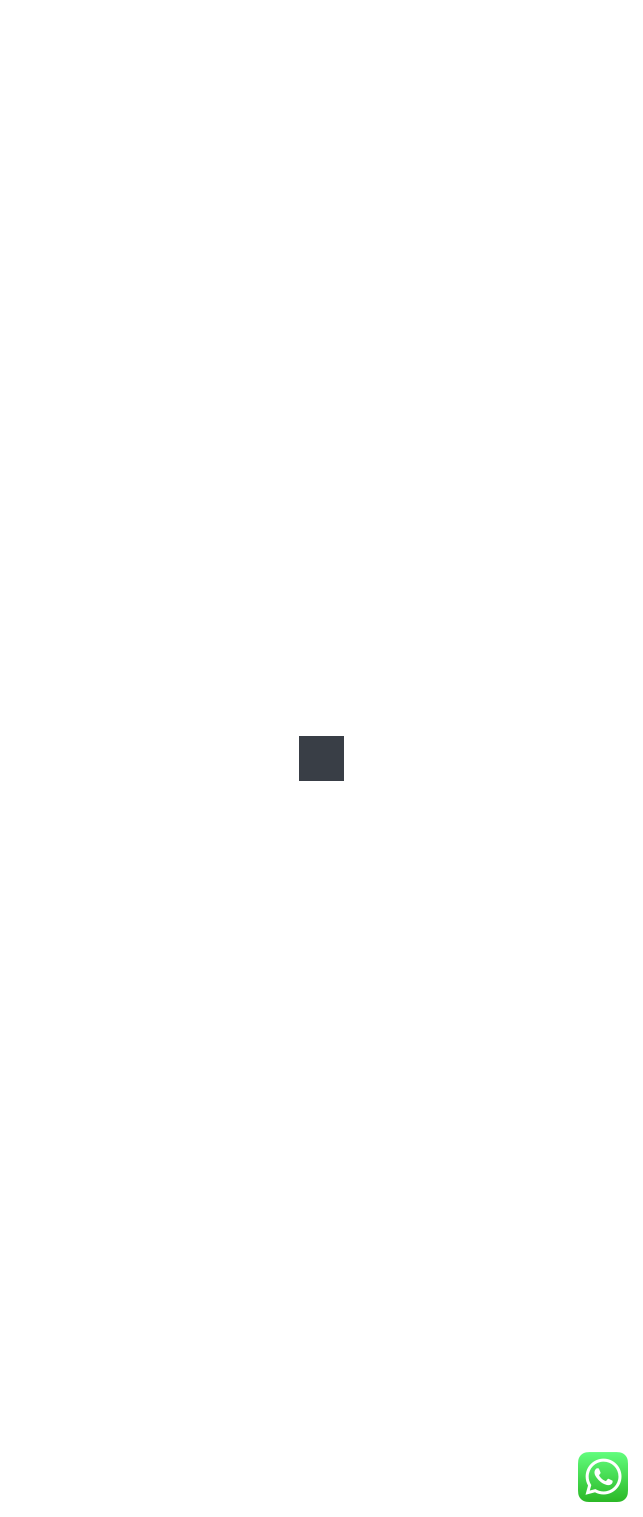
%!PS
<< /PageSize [643 1517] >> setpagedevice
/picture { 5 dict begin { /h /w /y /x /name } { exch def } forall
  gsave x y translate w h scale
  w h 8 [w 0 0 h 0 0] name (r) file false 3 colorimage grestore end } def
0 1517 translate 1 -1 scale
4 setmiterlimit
1 setgray
0 0 643 1517 rectfill
0.224 0.243 0.275 setrgbcolor
299 736 45 45 rectfill
(img1.rgb) 578 1452 50 50 picture
showpage
